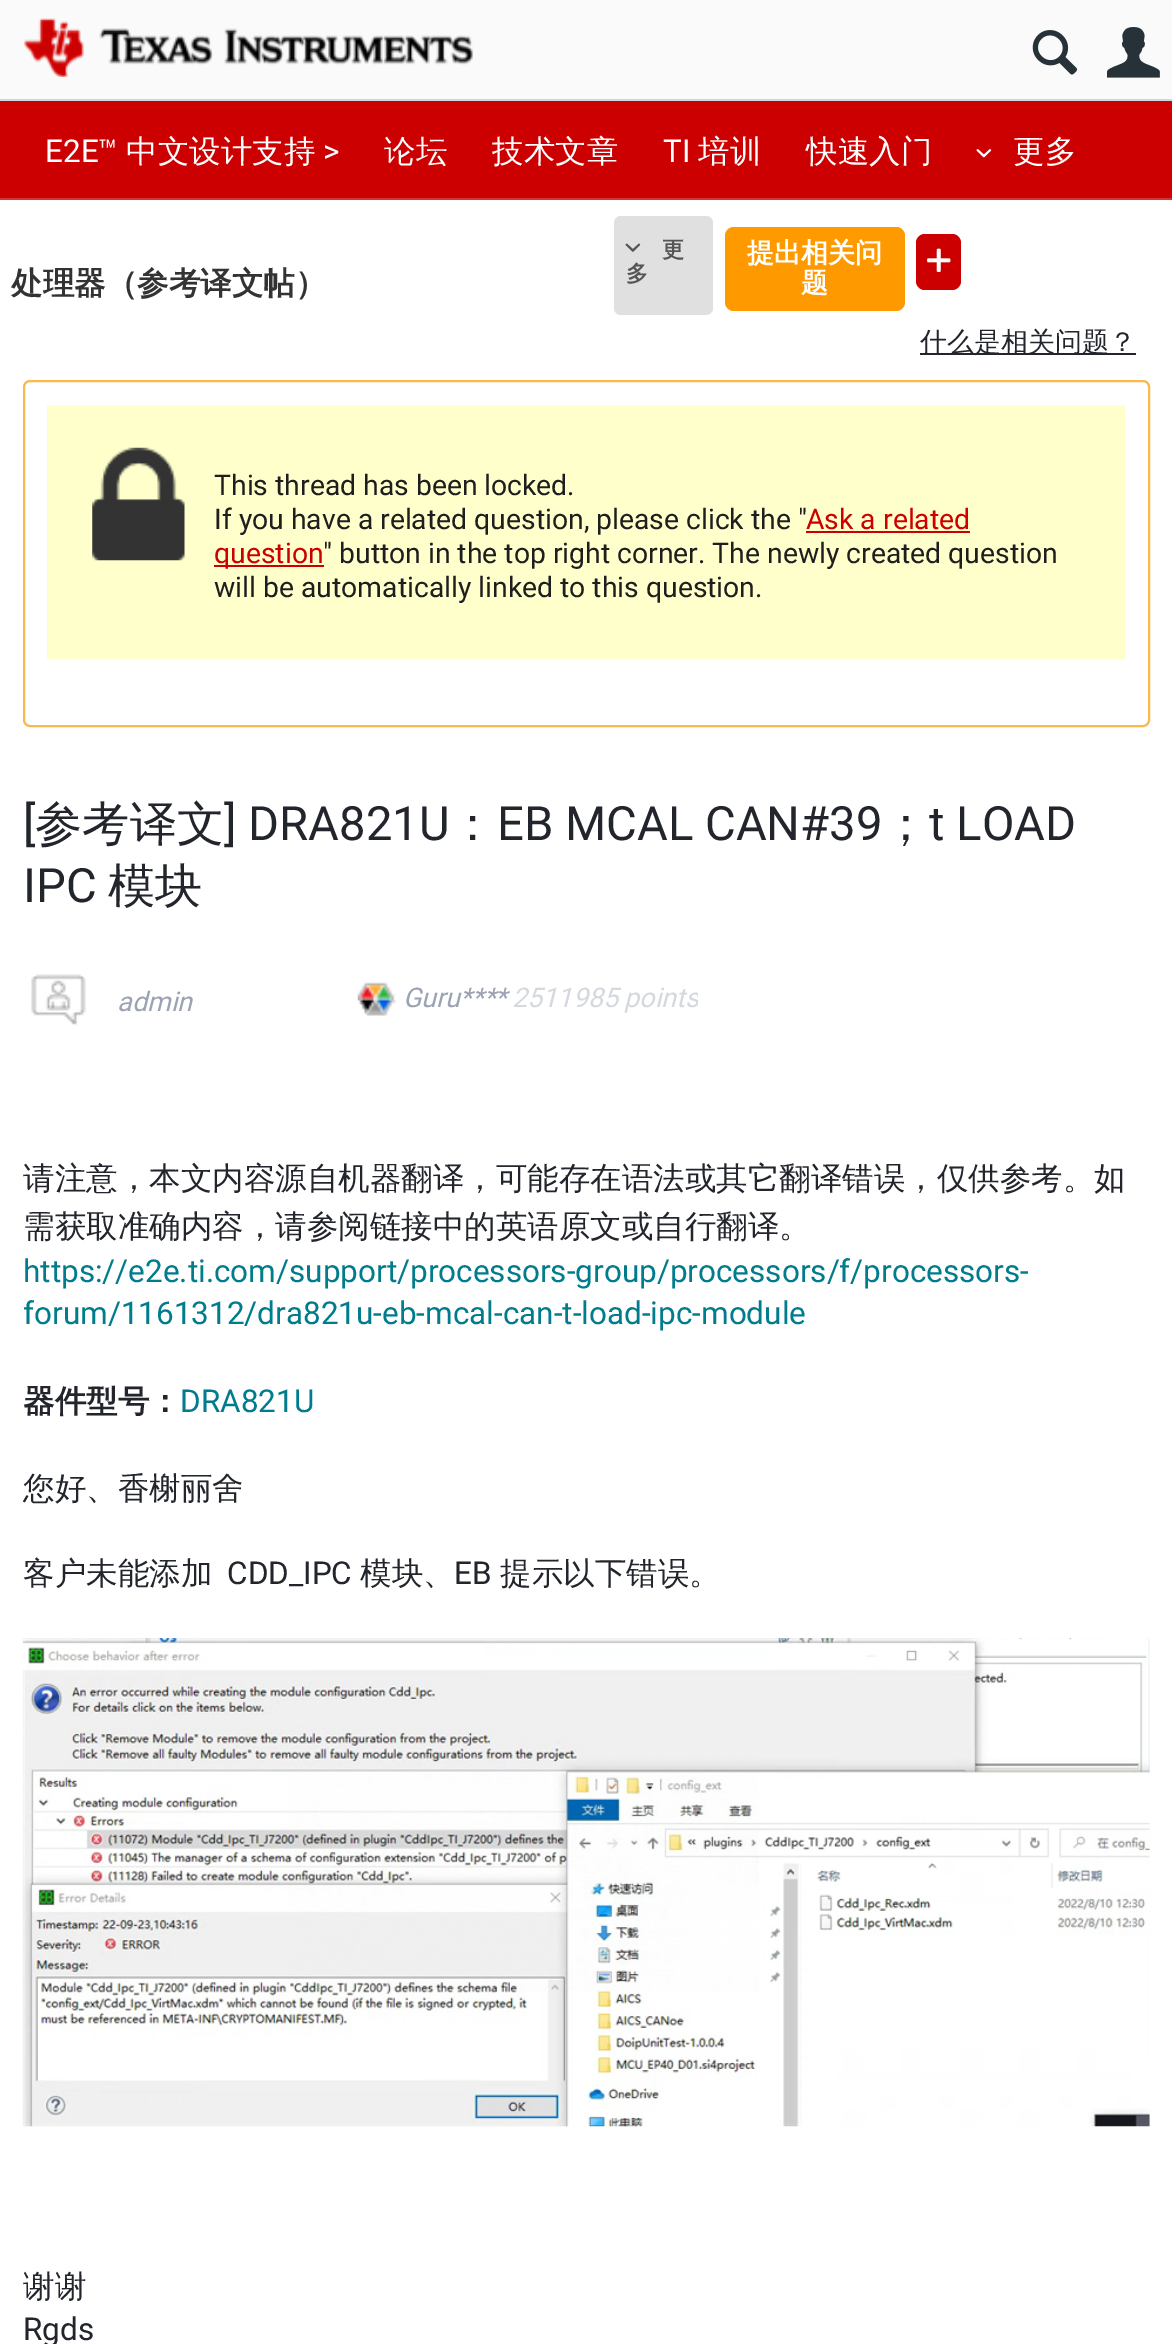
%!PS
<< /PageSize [1172 2344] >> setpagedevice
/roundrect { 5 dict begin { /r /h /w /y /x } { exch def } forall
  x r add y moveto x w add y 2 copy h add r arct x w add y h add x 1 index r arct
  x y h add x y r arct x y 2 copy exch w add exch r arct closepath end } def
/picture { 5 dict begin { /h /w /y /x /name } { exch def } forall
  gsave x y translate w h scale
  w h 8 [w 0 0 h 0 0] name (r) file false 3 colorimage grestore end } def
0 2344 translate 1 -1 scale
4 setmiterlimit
1 setgray
0 0 1172 2344 rectfill
0.812 0.847 0.863 setrgbcolor
0 99 1172 2 rectfill
0.98 setgray
0 0 1172 99 rectfill
(img1.rgb) 24 18 449 59 picture
(img2.rgb) 1032 30 46 45 picture
(img3.rgb) 1107 27 53 51 picture
0.8 0 0 setrgbcolor
0 101 1172 97 rectfill
0.839 0.2 0.2 setrgbcolor
0 198 1172 2 rectfill
/Roboto-Regular [31.5 0 0 -31.5 0 0] selectfont
1 setgray
45 162 moveto (E2E™) show
/WenQuanYiZenHei-Medium [31.5 0 0 -31.5 0 0] selectfont
126 162 moveto (中文设计支持) show
/Roboto-Regular [31.5 0 0 -31.5 0 0] selectfont
323 162 moveto (>) show
/WenQuanYiZenHei-Medium [31.5 0 0 -31.5 0 0] selectfont
384 162 moveto (论坛) show
492 162 moveto (技术文章) show
/Roboto-Regular [31.5 0 0 -31.5 0 0] selectfont
663 162 moveto (TI) show
/WenQuanYiZenHei-Medium [31.5 0 0 -31.5 0 0] selectfont
698 162 moveto (培训) show
806 162 moveto (快速入门) show
(img4.rgb) 976 149 16 9 picture
1013 162 moveto (更多) show
/WenQuanYiZenHei-Bold [31.5 0 0 -31.5 0 0] selectfont
0.2 setgray
11 294 moveto (处理器（参考译文帖）) show
0.878 setgray
614 216 99 99 7 roundrect fill
(img5.rgb) 625 243 16 9 picture
/WenQuanYiZenHei-Bold [22 0 0 -22 0 0] selectfont
0.333 setgray
662 257 moveto (更) show
626 281 moveto (多) show
0.8 0 0 setrgbcolor
916 234 45 56 9 roundrect fill
(img6.rgb) 927 248 24 25 picture
1 0.6 0 setrgbcolor
725 227 180 84 9 roundrect fill
/WenQuanYiZenHei-Bold [27 0 0 -27 0 0] selectfont
1 setgray
747 262 moveto (提出相关问) show
801 292 moveto (题) show
0.133 0.145 0.173 setrgbcolor
920 353 216 2 rectfill
/WenQuanYiZenHei-Medium [27 0 0 -27 0 0] selectfont
920 351 moveto (什么是相关问题？) show
0.98 0.725 0.302 setrgbcolor
2 setlinewidth
24 381 1125 345 6 roundrect stroke
1 1 0.8 setrgbcolor
47 405 1078 254 rectfill
(img7.rgb) 92 447 93 114 picture
/Roboto-Regular [28.35 0 0 -28.35 0 0] selectfont
0.118 setgray
214 495 moveto (This thread has been locked.) show
214 529 moveto (If you have a related question, please click the ") show
0.8 0 0 setrgbcolor
806 529 moveto (Ask a related) show
806 531 164 2 rectfill
214 565 110 2 rectfill
214 563 moveto (question) show
0.118 setgray
323 563 moveto (" button in the top right corner. The newly created question) show
214 597 moveto (will be automatically linked to this question.) show
/Roboto-Regular [47.25 0 0 -47.25 0 0] selectfont
0.133 0.145 0.173 setrgbcolor
23 840 moveto ([) show
/WenQuanYiZenHei-Medium [47.25 0 0 -47.25 0 0] selectfont
35 840 moveto (参考译文) show
/Roboto-Regular [47.25 0 0 -47.25 0 0] selectfont
224 840 moveto (] DRA821U) show
/WenQuanYiZenHei-Medium [47.25 0 0 -47.25 0 0] selectfont
449 840 moveto (：) show
/Roboto-Regular [47.25 0 0 -47.25 0 0] selectfont
497 840 moveto (EB MCAL CAN#39) show
/WenQuanYiZenHei-Medium [47.25 0 0 -47.25 0 0] selectfont
882 840 moveto (；) show
/Roboto-Regular [47.25 0 0 -47.25 0 0] selectfont
929 840 moveto (t LOAD) show
23 902 moveto (IPC) show
/WenQuanYiZenHei-Medium [47.25 0 0 -47.25 0 0] selectfont
108 902 moveto (模块) show
(img8.rgb) 31 974 55 52 picture
/Roboto-Italic [27 0 0 -27 0 0] selectfont
0.608 0.635 0.698 setrgbcolor
117 1011 moveto (admin) show
(img9.rgb) 357 982 39 34 picture
403 1007 moveto (Guru****) show
0.835 0.847 0.871 setrgbcolor
512 1007 moveto (2511985) show
gsave
23 963 675 72 rectclip
624 1007 moveto (points) show
grestore
/WenQuanYiZenHei-Medium [31.5 0 0 -31.5 0 0] selectfont
0.133 0.145 0.173 setrgbcolor
23 1189 moveto (请注意，本文内容源自机器翻译，可能存在语法或其它翻译错误，仅供参考。如) show
23 1237 moveto (需获取准确内容，请参阅链接中的英语原文或自行翻译。) show
/Roboto-Regular [31.5 0 0 -31.5 0 0] selectfont
0 0.486 0.549 setrgbcolor
23 1282 moveto (https://e2e.ti.com/support/processors-group/processors/f/processors-) show
23 1324 moveto (forum/1161312/dra821u-eb-mcal-can-t-load-ipc-module) show
/WenQuanYiZenHei-Bold [31.5 0 0 -31.5 0 0] selectfont
0.133 0.145 0.173 setrgbcolor
23 1412 moveto (器件型号：) show
/Roboto-Regular [31.5 0 0 -31.5 0 0] selectfont
0 0.486 0.549 setrgbcolor
180 1412 moveto (DRA821U) show
/WenQuanYiZenHei-Medium [31.5 0 0 -31.5 0 0] selectfont
0.133 0.145 0.173 setrgbcolor
23 1499 moveto (您好、香榭丽舍) show
23 1584 moveto (客户未能添加) show
/Roboto-Regular [31.5 0 0 -31.5 0 0] selectfont
227 1584 moveto (CDD_IPC) show
/WenQuanYiZenHei-Medium [31.5 0 0 -31.5 0 0] selectfont
360 1584 moveto (模块、) show
/Roboto-Regular [31.5 0 0 -31.5 0 0] selectfont
454 1584 moveto (EB) show
/WenQuanYiZenHei-Medium [31.5 0 0 -31.5 0 0] selectfont
500 1584 moveto (提示以下错误。) show
(img10.rgb) 22 1638 1128 489 picture
23 2297 moveto (谢谢) show
/Roboto-Regular [31.5 0 0 -31.5 0 0] selectfont
23 2340 moveto (Rgds) show
showpage
